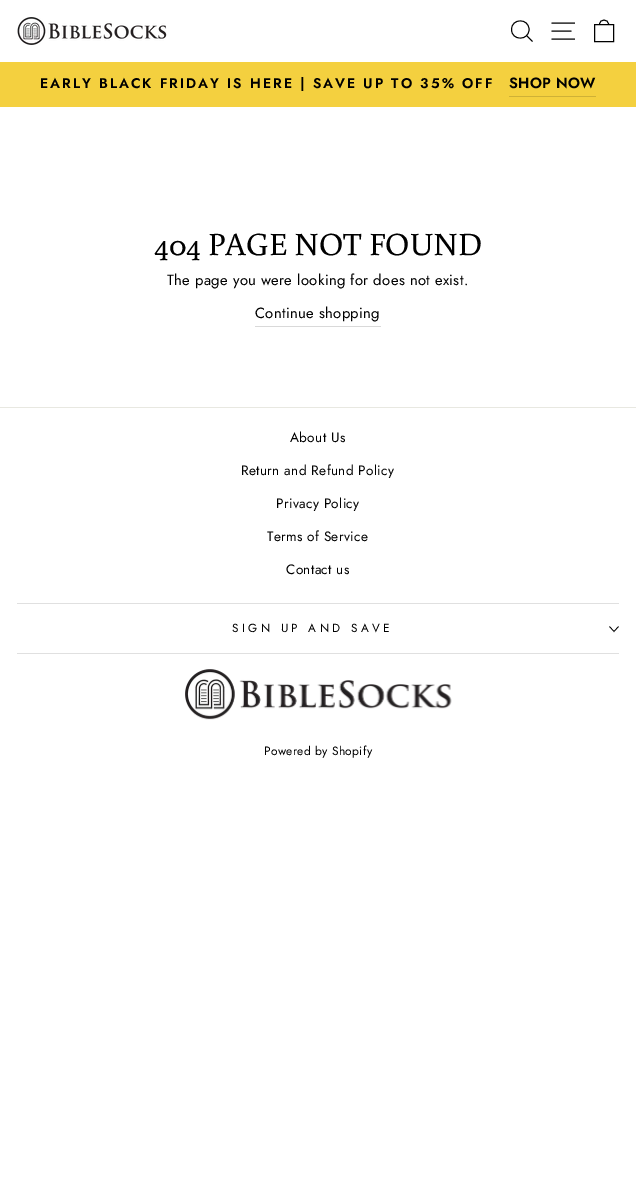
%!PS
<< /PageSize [636 1185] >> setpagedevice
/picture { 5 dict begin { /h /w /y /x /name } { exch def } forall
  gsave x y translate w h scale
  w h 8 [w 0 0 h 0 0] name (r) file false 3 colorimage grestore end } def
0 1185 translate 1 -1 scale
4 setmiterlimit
1 setgray
0 0 636 1185 rectfill
(img1.rgb) 17 17 150 28 picture
0 setgray
0.9 setlinewidth
newpath 529 29.5 moveto 529 41 511.5 41 511.5 29.5 curveto 511.5 18 529 18 529 29.5 curveto closepath 532.5 41.5 moveto 526.5 35.5 lineto stroke
newpath 551.5 23 moveto 575 23 lineto 551.5 31 moveto 571.5 31 lineto 551.5 39 moveto 575 39 lineto 594.5 24.5 moveto 613.5 24.5 lineto 613.5 41.5 lineto 594.5 41.5 lineto closepath 599.5 24.5 moveto 599.5 18.5 608.5 18.5 608.5 24.5 curveto stroke
0.957 0.816 0.247 setrgbcolor
0 62 636 45 rectfill
/Jost-SemiBold [14 0 0 -14 0 0] selectfont
0 setgray
40 88 moveto 2 0 (EARLY BLACK FRIDAY IS HERE | SAVE UP TO 35% OFF) ashow
0.812 0.694 0.212 setrgbcolor
509 96 87 1 rectfill
/Jost-SemiBold [14.75 0 0 -14.75 0 0] selectfont
0 setgray
509 88 moveto 0.35 0 (SHOP NOW) ashow
/Buenard-Regular [32.25 0 0 -32.25 0 0] selectfont
154 255 moveto (404 PAGE NOT FOUND) show
/Jost-Regular [14.75 0 0 -14.75 0 0] selectfont
167 285 moveto 0.35 0 (The page you were looking for does not exist.) ashow
0.851 setgray
255 326 126 1 rectfill
0 setgray
255 318 moveto 0.35 0 (Continue shopping) ashow
0.91 0.91 0.882 setrgbcolor
0 407 636 1 rectfill
/Jost-Regular [13.6 0 0 -13.6 0 0] selectfont
0 setgray
290 442 moveto 0.35 0 (About Us) ashow
241 475 moveto 0.35 0 (Return and Refund Policy) ashow
276 508 moveto 0.35 0 (Privacy Policy) ashow
267 541 moveto 0.35 0 (Terms of Service) ashow
286 574 moveto 0.35 0 (Contact us) ashow
0.878 setgray
17 603 602 1 rectfill
/Jost-Regular [11.75 0 0 -11.75 0 0] selectfont
0 setgray
232 632 moveto 3.5 0 (SIGN UP AND SAVE) ashow
0.7 setlinewidth
newpath 609.5 626.5 moveto 614 631.5 lineto 618.5 626.5 lineto stroke
0.878 setgray
17 653 602 1 rectfill
(img2.rgb) 185 669 267 51 picture
/Jost-Regular [12 0 0 -12 0 0] selectfont
0 setgray
264 755 moveto 0.35 0 (Powered by Shopify) ashow
showpage
